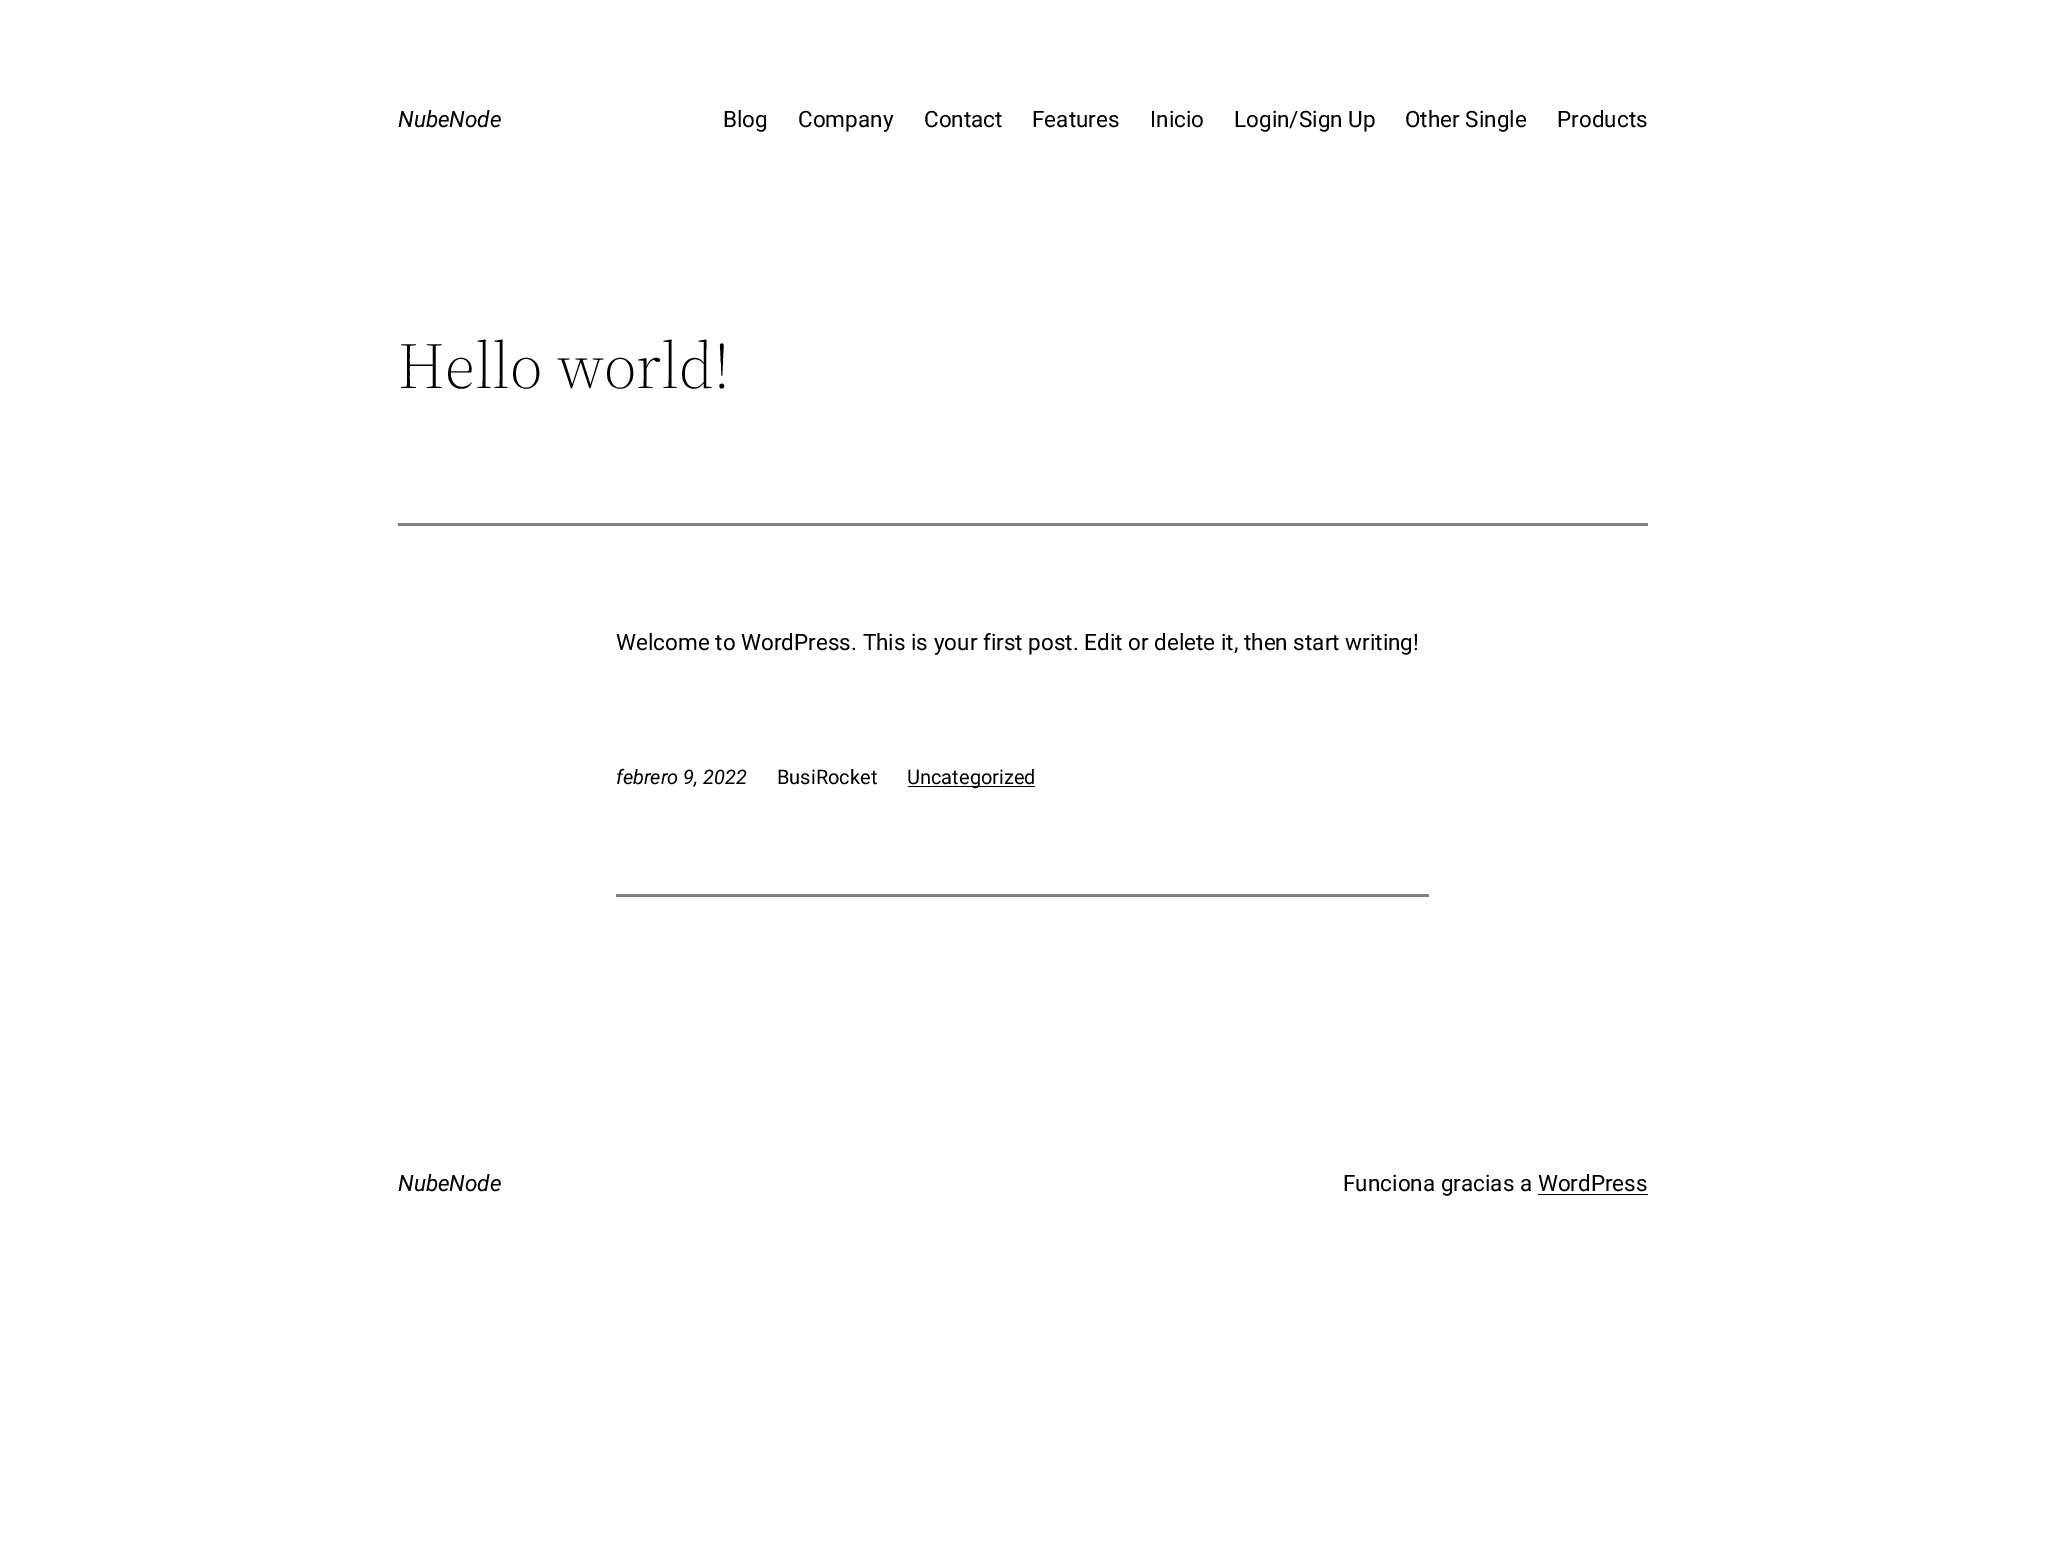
%!PS
<< /PageSize [2045 1550] >> setpagedevice
0 1550 translate 1 -1 scale
4 setmiterlimit
1 setgray
0 0 2045 1550 rectfill
/Roboto-Italic [22.5 0 0 -22.5 0 0] selectfont
0 setgray
398 127 moveto (NubeNode) show
/Roboto-Regular [22.5 0 0 -22.5 0 0] selectfont
723 127 moveto (Blog) show
798 127 moveto (Company) show
924 127 moveto (Contact) show
1032 127 moveto (Features) show
1150 127 moveto (Inicio) show
1234 127 moveto (Login/Sign Up) show
1405 127 moveto (Other Single) show
1557 127 moveto (Products) show
/SourceSerif4-Light [65 0 0 -65 0 0] selectfont
398 388 moveto (Hello world!) show
0.502 setgray
398 523 1250 3 rectfill
/Roboto-Regular [22.5 0 0 -22.5 0 0] selectfont
0 setgray
616 650 moveto (Welcome to WordPress. This is your first post. Edit or delete it, then start writing!) show
/Roboto-Italic [20 0 0 -20 0 0] selectfont
616 784 moveto (febrero 9, 2022) show
/Roboto-Regular [20 0 0 -20 0 0] selectfont
777 784 moveto (BusiRocket) show
908 786 127 1 rectfill
907 784 moveto (Uncategorized) show
0.502 setgray
616 894 813 3 rectfill
/Roboto-Italic [22.5 0 0 -22.5 0 0] selectfont
0 setgray
398 1191 moveto (NubeNode) show
/Roboto-Regular [22.5 0 0 -22.5 0 0] selectfont
1343 1191 moveto (Funciona gracias a WordPress) show
1538 1194 110 1 rectfill
showpage
